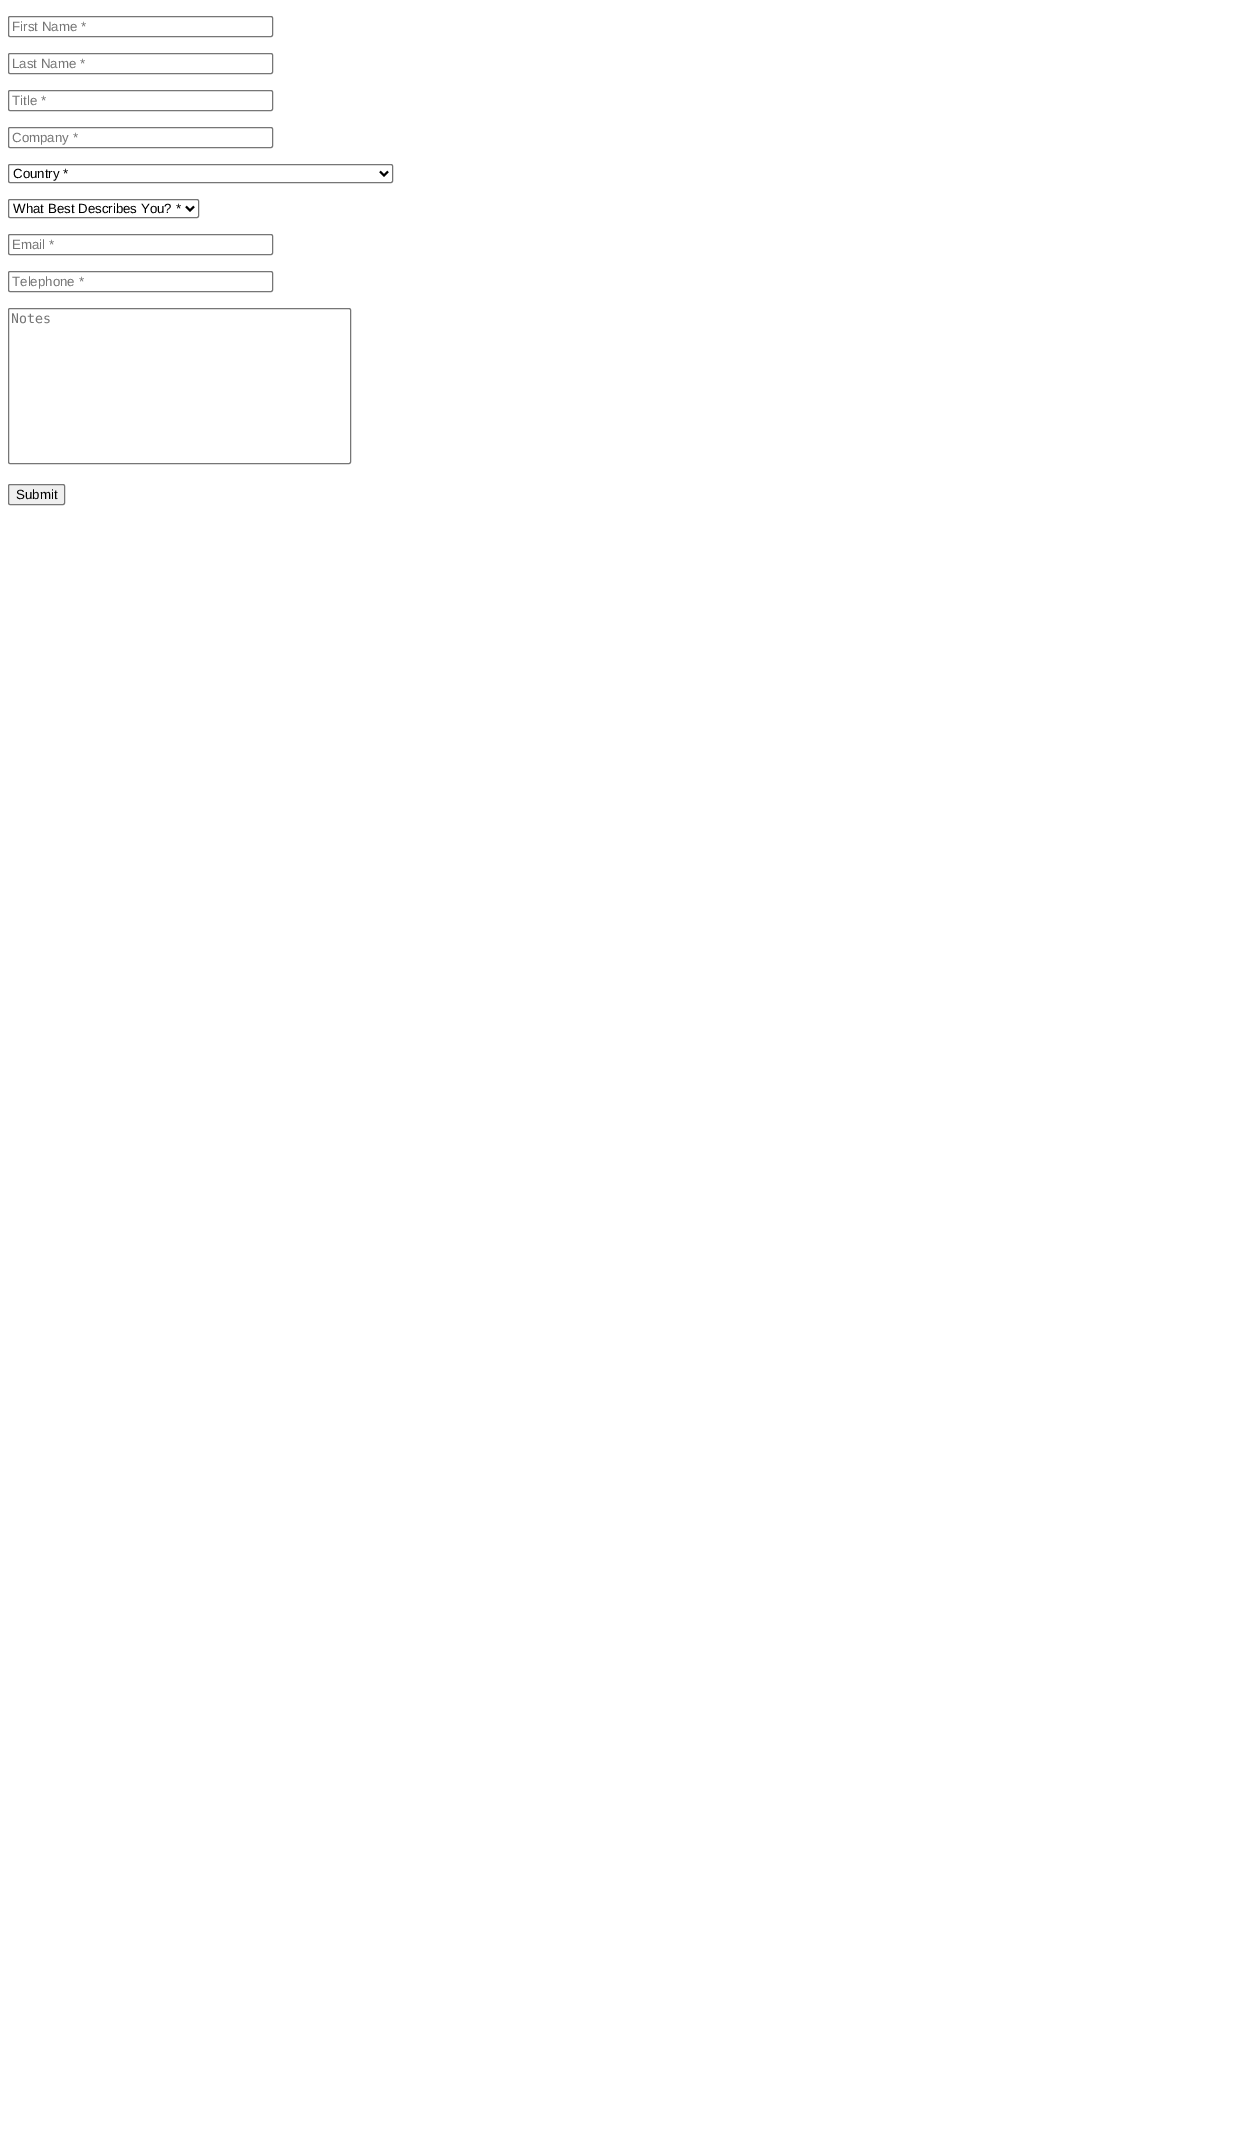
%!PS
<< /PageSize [1235 2149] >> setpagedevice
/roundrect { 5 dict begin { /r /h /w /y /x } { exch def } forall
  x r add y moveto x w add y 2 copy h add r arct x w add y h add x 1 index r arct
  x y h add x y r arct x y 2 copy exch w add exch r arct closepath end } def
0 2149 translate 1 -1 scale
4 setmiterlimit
1 setgray
0 0 1235 2149 rectfill
0.463 setgray
8.5 16.5 264 20 1.5 roundrect stroke
/LiberationSans-Regular [13.3 0 0 -13.3 0 0] selectfont
0.459 setgray
12 31 moveto (First Name *) show
0.463 setgray
8.5 53.5 264 20 1.5 roundrect stroke
0.459 setgray
12 68 moveto (Last Name *) show
0.463 setgray
8.5 90.5 264 20 1.5 roundrect stroke
0.459 setgray
12 105 moveto (Title *) show
0.463 setgray
8.5 127.5 264 20 1.5 roundrect stroke
0.459 setgray
12 142 moveto (Company *) show
0.463 setgray
8.5 164.5 384 18 1.5 roundrect stroke
0 setgray
2 setlinewidth
newpath 380 171.5 moveto 384 175.5 lineto 388 171.5 lineto stroke
13 178 moveto (Country *) show
0.463 setgray
1 setlinewidth
8.5 199.5 190 18 1.5 roundrect stroke
0 setgray
2 setlinewidth
newpath 186 206.5 moveto 190 210.5 lineto 194 206.5 lineto stroke
13 213 moveto (What Best Describes You? *) show
0.463 setgray
1 setlinewidth
8.5 234.5 264 20 1.5 roundrect stroke
0.459 setgray
12 249 moveto (Email *) show
0.463 setgray
8.5 271.5 264 20 1.5 roundrect stroke
0.459 setgray
12 286 moveto (Telephone *) show
0.463 setgray
8.5 308.5 342 155 1.5 roundrect stroke
/DejaVuSansMono-Regular [13.3 0 0 -13.3 0 0] selectfont
0.459 setgray
11 323 moveto (Notes) show
0.937 setgray
8.5 484.5 56 20 1.5 roundrect gsave fill grestore
0.463 setgray
stroke
/LiberationSans-Regular [13.3 0 0 -13.3 0 0] selectfont
0 setgray
16 499 moveto (Submit) show
showpage
